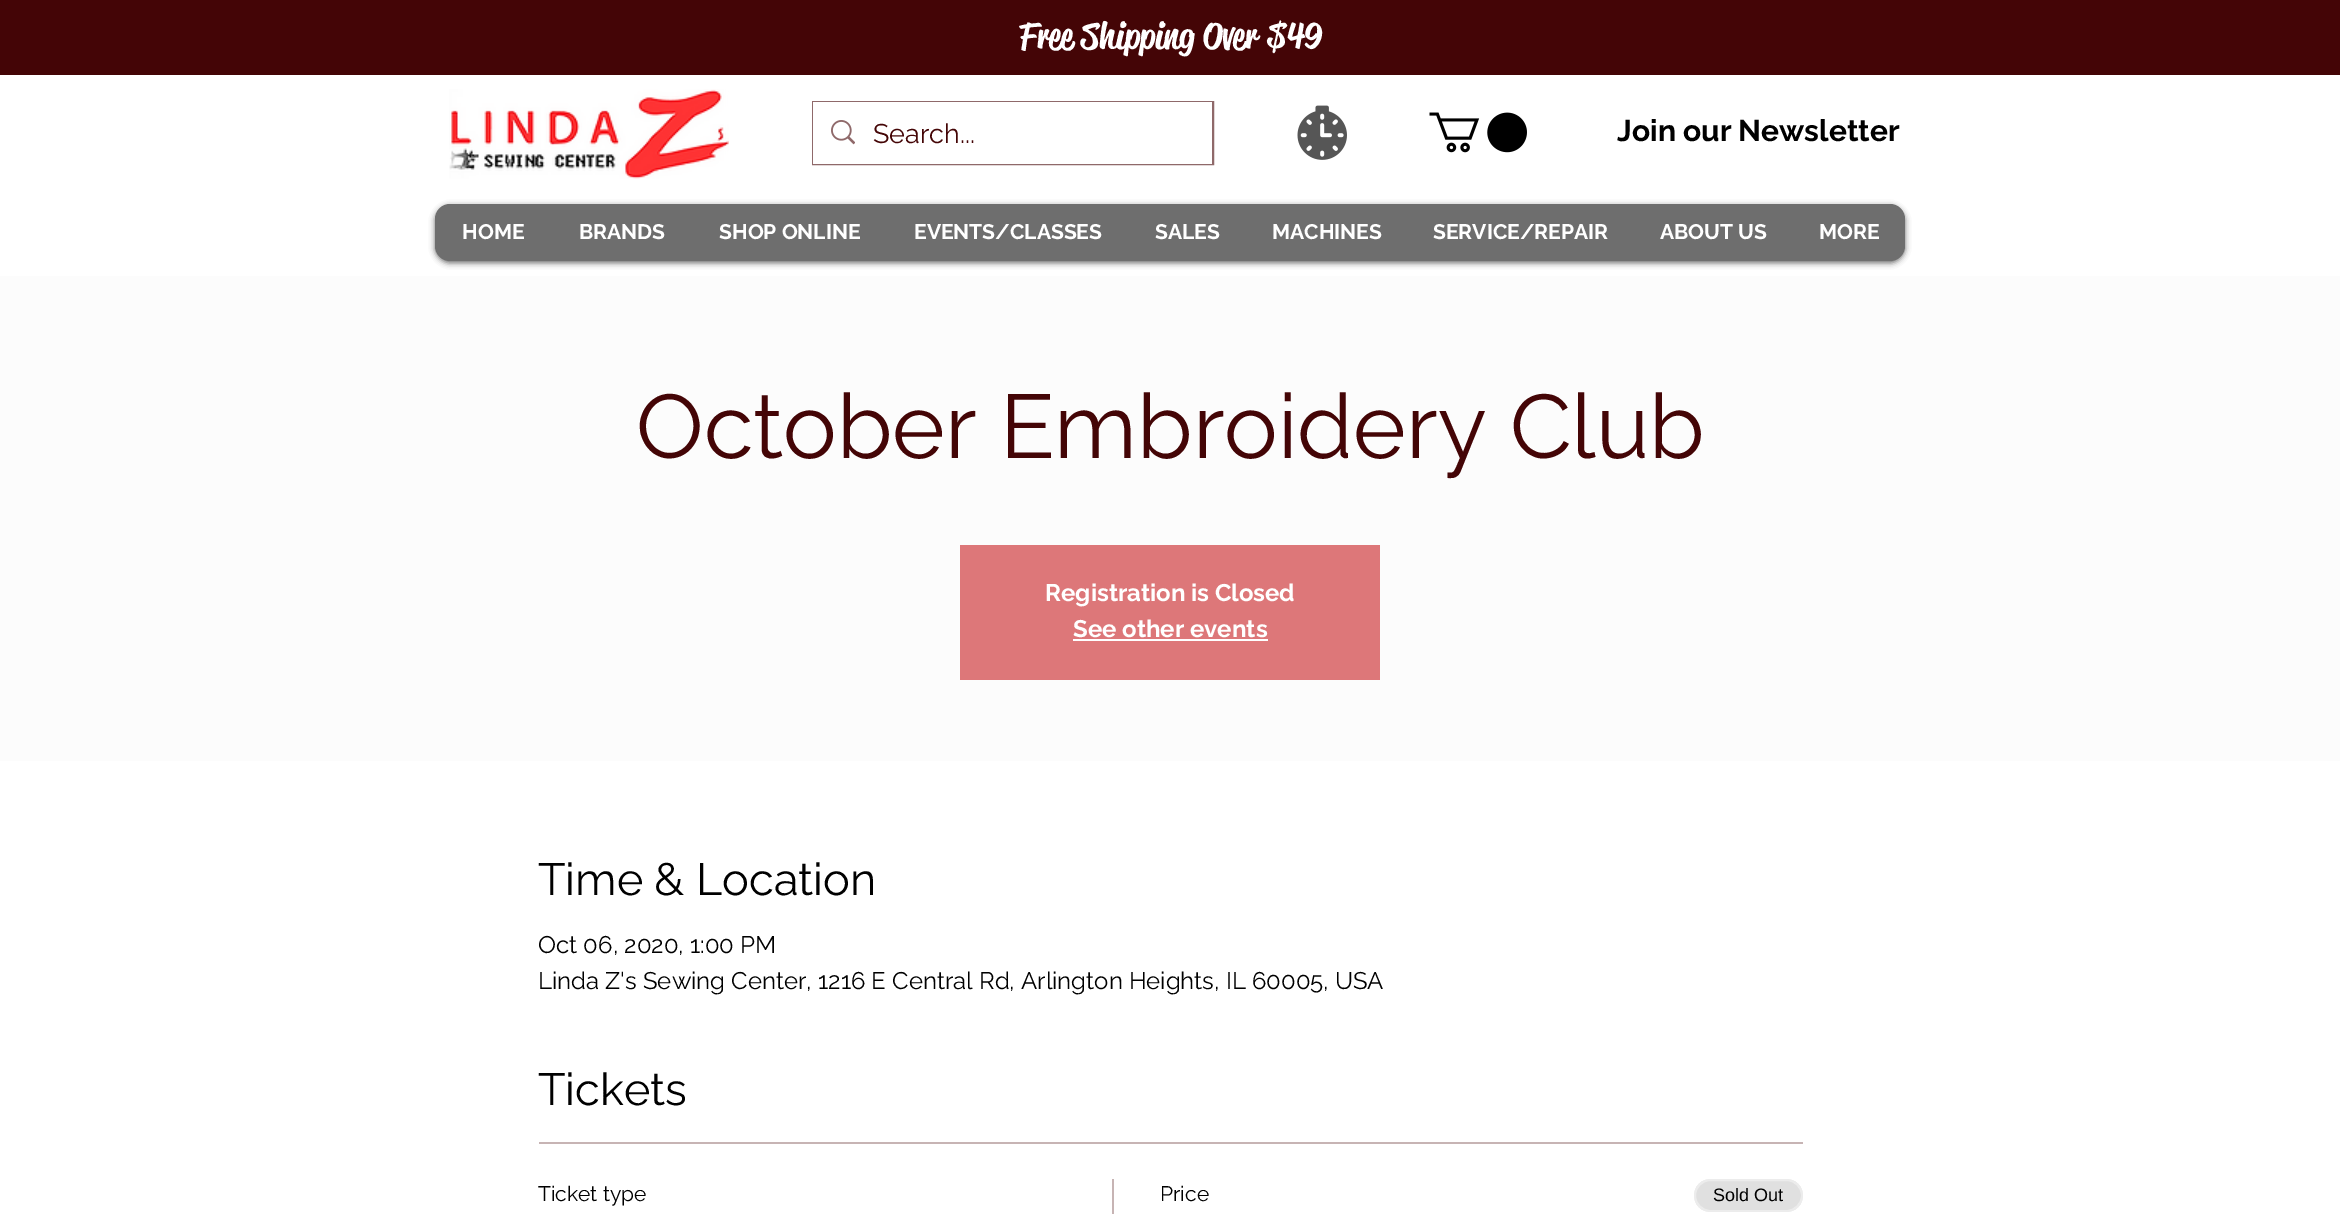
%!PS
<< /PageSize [2340 1214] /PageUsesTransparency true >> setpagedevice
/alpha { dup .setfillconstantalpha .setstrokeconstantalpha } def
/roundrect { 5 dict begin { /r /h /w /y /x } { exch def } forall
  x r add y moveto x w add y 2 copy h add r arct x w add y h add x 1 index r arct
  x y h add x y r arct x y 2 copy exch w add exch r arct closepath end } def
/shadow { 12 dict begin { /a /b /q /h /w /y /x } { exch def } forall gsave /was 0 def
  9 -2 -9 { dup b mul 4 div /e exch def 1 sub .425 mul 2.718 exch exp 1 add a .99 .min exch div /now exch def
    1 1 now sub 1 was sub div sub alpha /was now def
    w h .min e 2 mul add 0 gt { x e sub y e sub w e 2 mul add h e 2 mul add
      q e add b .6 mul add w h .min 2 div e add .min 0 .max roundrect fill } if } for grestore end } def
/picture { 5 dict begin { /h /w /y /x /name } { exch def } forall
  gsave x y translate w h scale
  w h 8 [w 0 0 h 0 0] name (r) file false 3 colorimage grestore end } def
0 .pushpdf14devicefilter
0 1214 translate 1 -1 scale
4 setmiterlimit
1 setgray
0 0 2340 1214 rectfill
0.267 0.02 0.024 setrgbcolor
0 0 2340 75 rectfill
/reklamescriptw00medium-Medium [36 0 0 -36 0 0] selectfont
1 setgray
1019 48 moveto (Free Shipping Over $49) show
(img1.rgb) 449 89 280 90 picture
0.561 0.412 0.416 setrgbcolor
2 setlinewidth
813 102 400 62 rectstroke
1 setgray
813 102 399 62 rectfill
(img2.rgb) 831 120 24 25 picture
/Raleway-Regular [27 0 0 -27 0 0] selectfont
0.267 0.02 0.024 setrgbcolor
873 143 moveto (Search...) show
(img3.rgb) 1297 105 50 55 picture
(img4.rgb) 1429 112 98 41 picture
/Raleway-Bold [30 0 0 -30 0 0] selectfont
0 setgray
1617 141 moveto (Join our Newsletter) show
435 206 1470 57 15 3 0.6 shadow
0.431 setgray
435 204 1470 57 15 roundrect fill
/Raleway-Bold [21 0 0 -21 0 0] selectfont
1 setgray
462 239 moveto (HOME) show
579 239 moveto (BRANDS) show
719 239 moveto (SHOP ONLINE) show
914 239 moveto (EVENTS/CLASSES) show
1155 239 moveto (SALES) show
1272 239 moveto (MACHINES) show
1433 239 moveto (SERVICE/REPAIR) show
1660 239 moveto (ABOUT US) show
1819 239 moveto (MORE) show
0.988 setgray
0 276 2340 485 rectfill
/Raleway-Regular [90 0 0 -90 0 0] selectfont
0.267 0.02 0.024 setrgbcolor
636 458 moveto (October Embroidery Club) show
0.867 0.467 0.475 setrgbcolor
960 545 420 135 rectfill
/Raleway-Bold [24 0 0 -24 0 0] selectfont
1 setgray
1045 601 moveto (Registration is Closed) show
1073 637 moveto (See other events) show
1073 639 195 2 rectfill
/Raleway-Regular [45 0 0 -45 0 0] selectfont
0 setgray
538 895 moveto (Time & Location) show
/Raleway-Regular [24 0 0 -24 0 0] selectfont
538 953 moveto (Oct 06, 2020, 1:00 PM) show
538 989 moveto (Linda Z's Sewing Center, 1216 E Central Rd, Arlington Heights, IL 60005, USA) show
/Raleway-Regular [45 0 0 -45 0 0] selectfont
538 1105 moveto (Tickets) show
0.78 0.706 0.706 setrgbcolor
539 1142 1264 2 rectfill
/Raleway-Regular [21 0 0 -21 0 0] selectfont
0 setgray
538 1201 moveto (Ticket type) show
0.78 0.706 0.706 setrgbcolor
1112 1179 2 35 rectfill
0 setgray
1160 1201 moveto (Price) show
0.878 setgray
1694 1179 109 33 16.5 roundrect fill
0.4 alpha
1 setgray
1695 1180 107 31 15.5 roundrect stroke
/LiberationSans-Regular [18 0 0 -18 0 0] selectfont
1 alpha
0 setgray
1713 1201 moveto (Sold Out) show
.poppdf14devicefilter showpage
